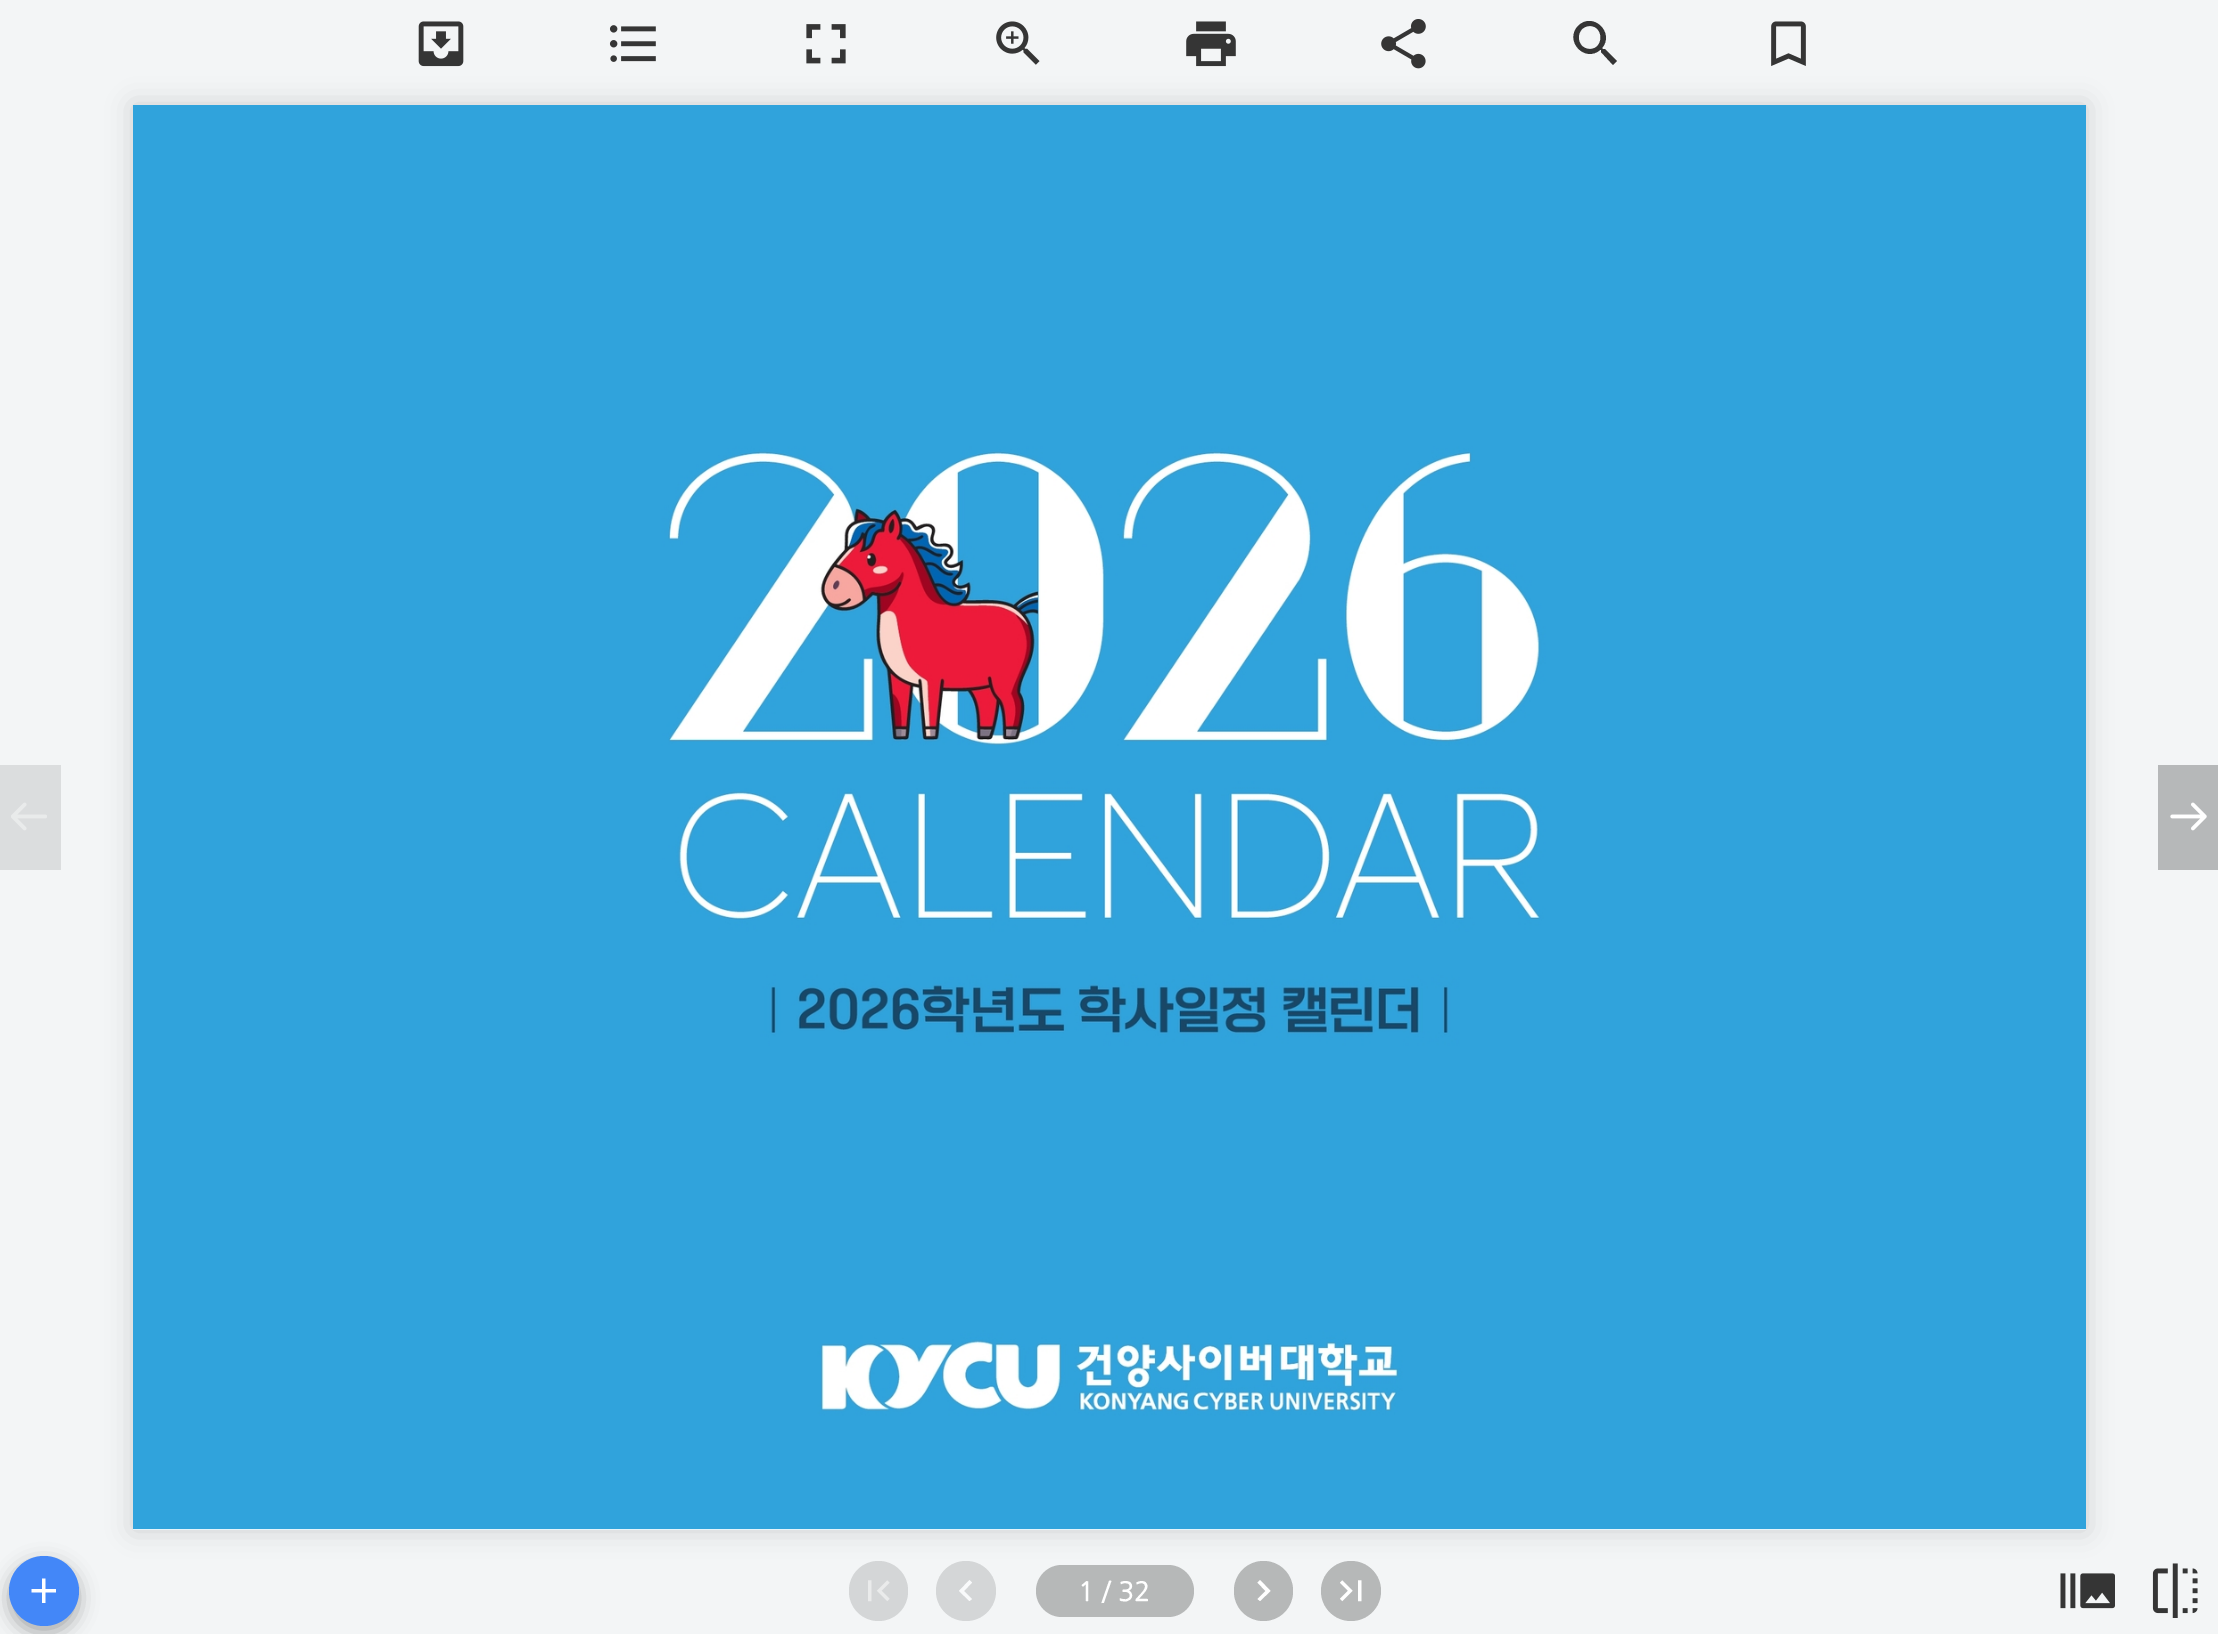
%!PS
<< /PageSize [2218 1634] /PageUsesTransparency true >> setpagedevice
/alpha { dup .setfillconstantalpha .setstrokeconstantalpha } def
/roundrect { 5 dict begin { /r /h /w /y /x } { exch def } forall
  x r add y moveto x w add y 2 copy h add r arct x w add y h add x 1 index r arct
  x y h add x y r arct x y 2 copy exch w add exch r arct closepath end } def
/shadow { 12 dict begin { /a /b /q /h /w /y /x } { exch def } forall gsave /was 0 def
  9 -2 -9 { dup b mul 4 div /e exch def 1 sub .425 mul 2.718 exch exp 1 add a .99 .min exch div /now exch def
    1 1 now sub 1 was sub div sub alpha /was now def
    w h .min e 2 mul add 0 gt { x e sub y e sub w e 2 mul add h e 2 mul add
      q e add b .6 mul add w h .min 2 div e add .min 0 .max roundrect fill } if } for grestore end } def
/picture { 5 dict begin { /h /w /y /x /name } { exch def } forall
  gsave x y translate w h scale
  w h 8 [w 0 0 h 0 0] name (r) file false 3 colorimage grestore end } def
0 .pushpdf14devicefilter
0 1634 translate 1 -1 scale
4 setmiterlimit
0.953 0.961 0.965 setrgbcolor
0 0 2218 1634 rectfill
0 setgray
133 105 1953 1425 0 13 0.15 shadow
(img1.rgb) 418 21 46 46 picture
(img2.rgb) 609 25 47 37 picture
(img3.rgb) 806 24 40 40 picture
(img4.rgb) 996 21 44 44 picture
(img5.rgb) 1186 21 50 46 picture
(img6.rgb) 1381 19 45 50 picture
0.208 setgray
newpath 1605 49 moveto 1603 49 lineto 1602 48 lineto 1615 33 1593 11 1578 26 curveto 1564 41 1585 63 1600 50 curveto 1601 50 lineto 1601 52 lineto 1613 65 lineto 1617 61 lineto closepath 1590 49 moveto 1575 49 1575 26 1590 26 curveto 1604 26 1604 49 1590 49 curveto closepath fill
(img7.rgb) 1771 21 35 45 picture
1 setgray
133 1529 1953 1 rectfill
(img8.rgb) 133 105 1953 1425 picture
0.859 0.867 0.871 setrgbcolor
0 765 61 105 rectfill
(img9.rgb) 11 802 36 29 picture
0.714 0.722 0.725 setrgbcolor
2158 765 60 105 rectfill
(img10.rgb) 2170 802 37 29 picture
0 setgray
9 1563 70 70 35 9.5 0.3 shadow
0.263 0.529 0.973 setrgbcolor
newpath 44 1591 35 0 360 arc closepath fill
(img11.rgb) 31 1578 25 25 picture
0.831 0.839 0.843 setrgbcolor
849 1561 59 60 29.5 roundrect fill
(img12.rgb) 868 1580 22 22 picture
newpath 966 1591 30 0 360 arc closepath fill
0.976 0.98 0.984 setrgbcolor
newpath 972 1582.5 moveto 969.5 1580 lineto 959 1591 lineto 969.5 1601 lineto 972 1599 lineto 964 1591 lineto closepath fill
0.714 0.722 0.722 setrgbcolor
1036 1565 158 52 26 roundrect fill
/NanumGothic-Bold [26 0 0 -26 0 0] selectfont
1 setgray
1078 1600 moveto (1 / 32) show
0.714 0.722 0.722 setrgbcolor
1234 1561 59 60 29.5 roundrect fill
1 setgray
newpath 1260 1580 moveto 1257.5 1582.5 lineto 1265.5 1591 lineto 1257.5 1599 lineto 1260 1601 lineto 1270.5 1591 lineto closepath fill
0.714 0.722 0.722 setrgbcolor
newpath 1351 1591 30 0 360 arc closepath fill
(img13.rgb) 1340 1580 22 22 picture
(img14.rgb) 2060 1573 55 36 picture
(img15.rgb) 2152 1563 46 55 picture
.poppdf14devicefilter showpage
